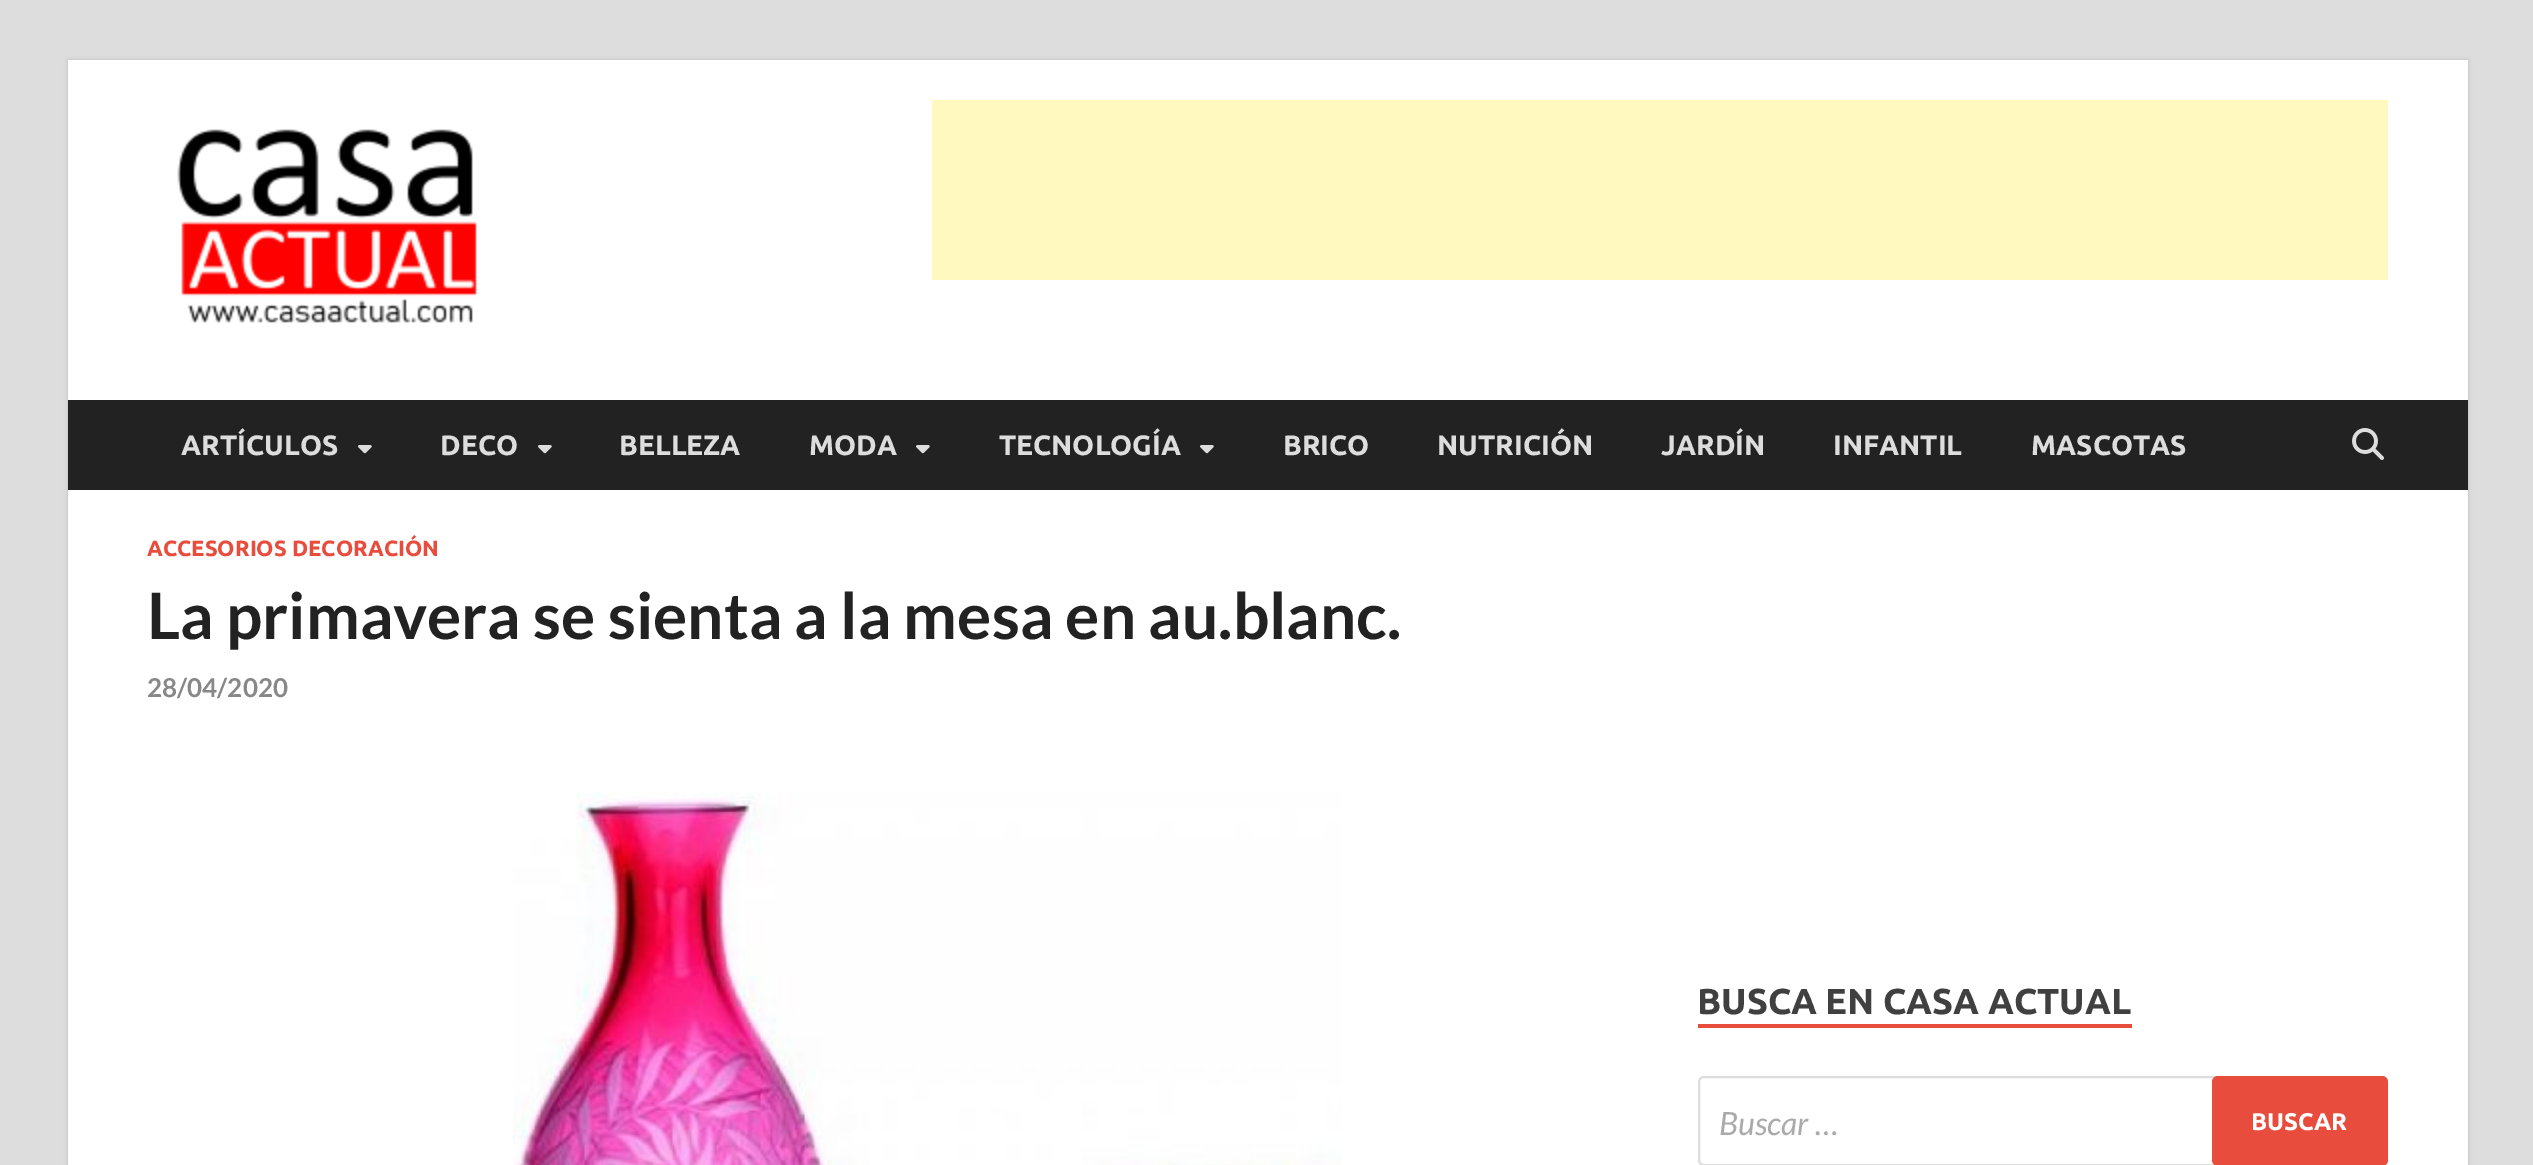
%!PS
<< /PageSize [2533 1165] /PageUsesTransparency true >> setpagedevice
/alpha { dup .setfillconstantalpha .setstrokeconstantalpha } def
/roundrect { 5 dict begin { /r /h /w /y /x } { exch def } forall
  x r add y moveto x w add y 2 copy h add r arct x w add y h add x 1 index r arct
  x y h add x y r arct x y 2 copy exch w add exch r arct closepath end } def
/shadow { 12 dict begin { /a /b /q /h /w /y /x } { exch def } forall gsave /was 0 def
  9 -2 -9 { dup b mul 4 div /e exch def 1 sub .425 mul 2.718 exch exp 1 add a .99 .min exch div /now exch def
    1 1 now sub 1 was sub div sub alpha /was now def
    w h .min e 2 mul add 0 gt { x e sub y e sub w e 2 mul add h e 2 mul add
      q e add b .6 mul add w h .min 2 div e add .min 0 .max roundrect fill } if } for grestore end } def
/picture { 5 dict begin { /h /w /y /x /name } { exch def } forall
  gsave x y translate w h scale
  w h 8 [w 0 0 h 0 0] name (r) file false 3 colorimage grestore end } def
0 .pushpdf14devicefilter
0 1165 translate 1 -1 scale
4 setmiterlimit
0.867 setgray
0 0 2533 1165 rectfill
0.733 setgray
68 60 2400 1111 0 2 1 shadow
1 setgray
68 60 2400 1105 rectfill
(img1.rgb) 177 129 300 194 picture
1 0.976 0.753 setrgbcolor
932 100 1456 180 rectfill
0.133 setgray
68 400 2400 90 rectfill
/Ubuntu-Bold [28 0 0 -28 0 0] selectfont
0.867 setgray
181 455 moveto (ARTÍCULOS) show
(img2.rgb) 358 445 14 9 picture
440 455 moveto (DECO) show
(img2.rgb) 538 445 14 9 picture
619 455 moveto (BELLEZA) show
809 455 moveto (MODA) show
(img2.rgb) 916 445 14 9 picture
999 455 moveto (TECNOLOGÍA) show
(img2.rgb) 1200 445 14 9 picture
1283 455 moveto (BRICO) show
1437 455 moveto (NUTRICIÓN) show
1661 455 moveto (JARDÍN) show
1833 455 moveto (INFANTIL) show
2031 455 moveto (MASCOTAS) show
(img3.rgb) 2352 428 32 32 picture
/Ubuntu-Bold [22 0 0 -22 0 0] selectfont
0.906 0.298 0.235 setrgbcolor
147 556 moveto (ACCESORIOS DECORACIÓN) show
/Lato-Bold [64 0 0 -64 0 0] selectfont
0.133 setgray
147 639 moveto (La primavera se sienta a la mesa en au.blanc.) show
/Lato-Bold [26 0 0 -26 0 0] selectfont
0.533 setgray
147 697 moveto (28/04/2020) show
(img4.rgb) 513 792 829 373 picture
0.906 0.298 0.235 setrgbcolor
1698 1024 434 4 rectfill
/Ubuntu-Bold [36 0 0 -36 0 0] selectfont
0.251 setgray
1697 1014 moveto (BUSCA EN CASA ACTUAL) show
0.867 setgray
2 setlinewidth
1699 1077 688 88 5 roundrect stroke
/Lato-Italic [32 0 0 -32 0 0] selectfont
0.667 setgray
1719 1135 moveto (Buscar …) show
0.906 0.298 0.235 setrgbcolor
2212 1076 176 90 6 roundrect fill
/Ubuntu-Bold [24 0 0 -24 0 0] selectfont
1 setgray
2251 1130 moveto (BUSCAR) show
.poppdf14devicefilter showpage
